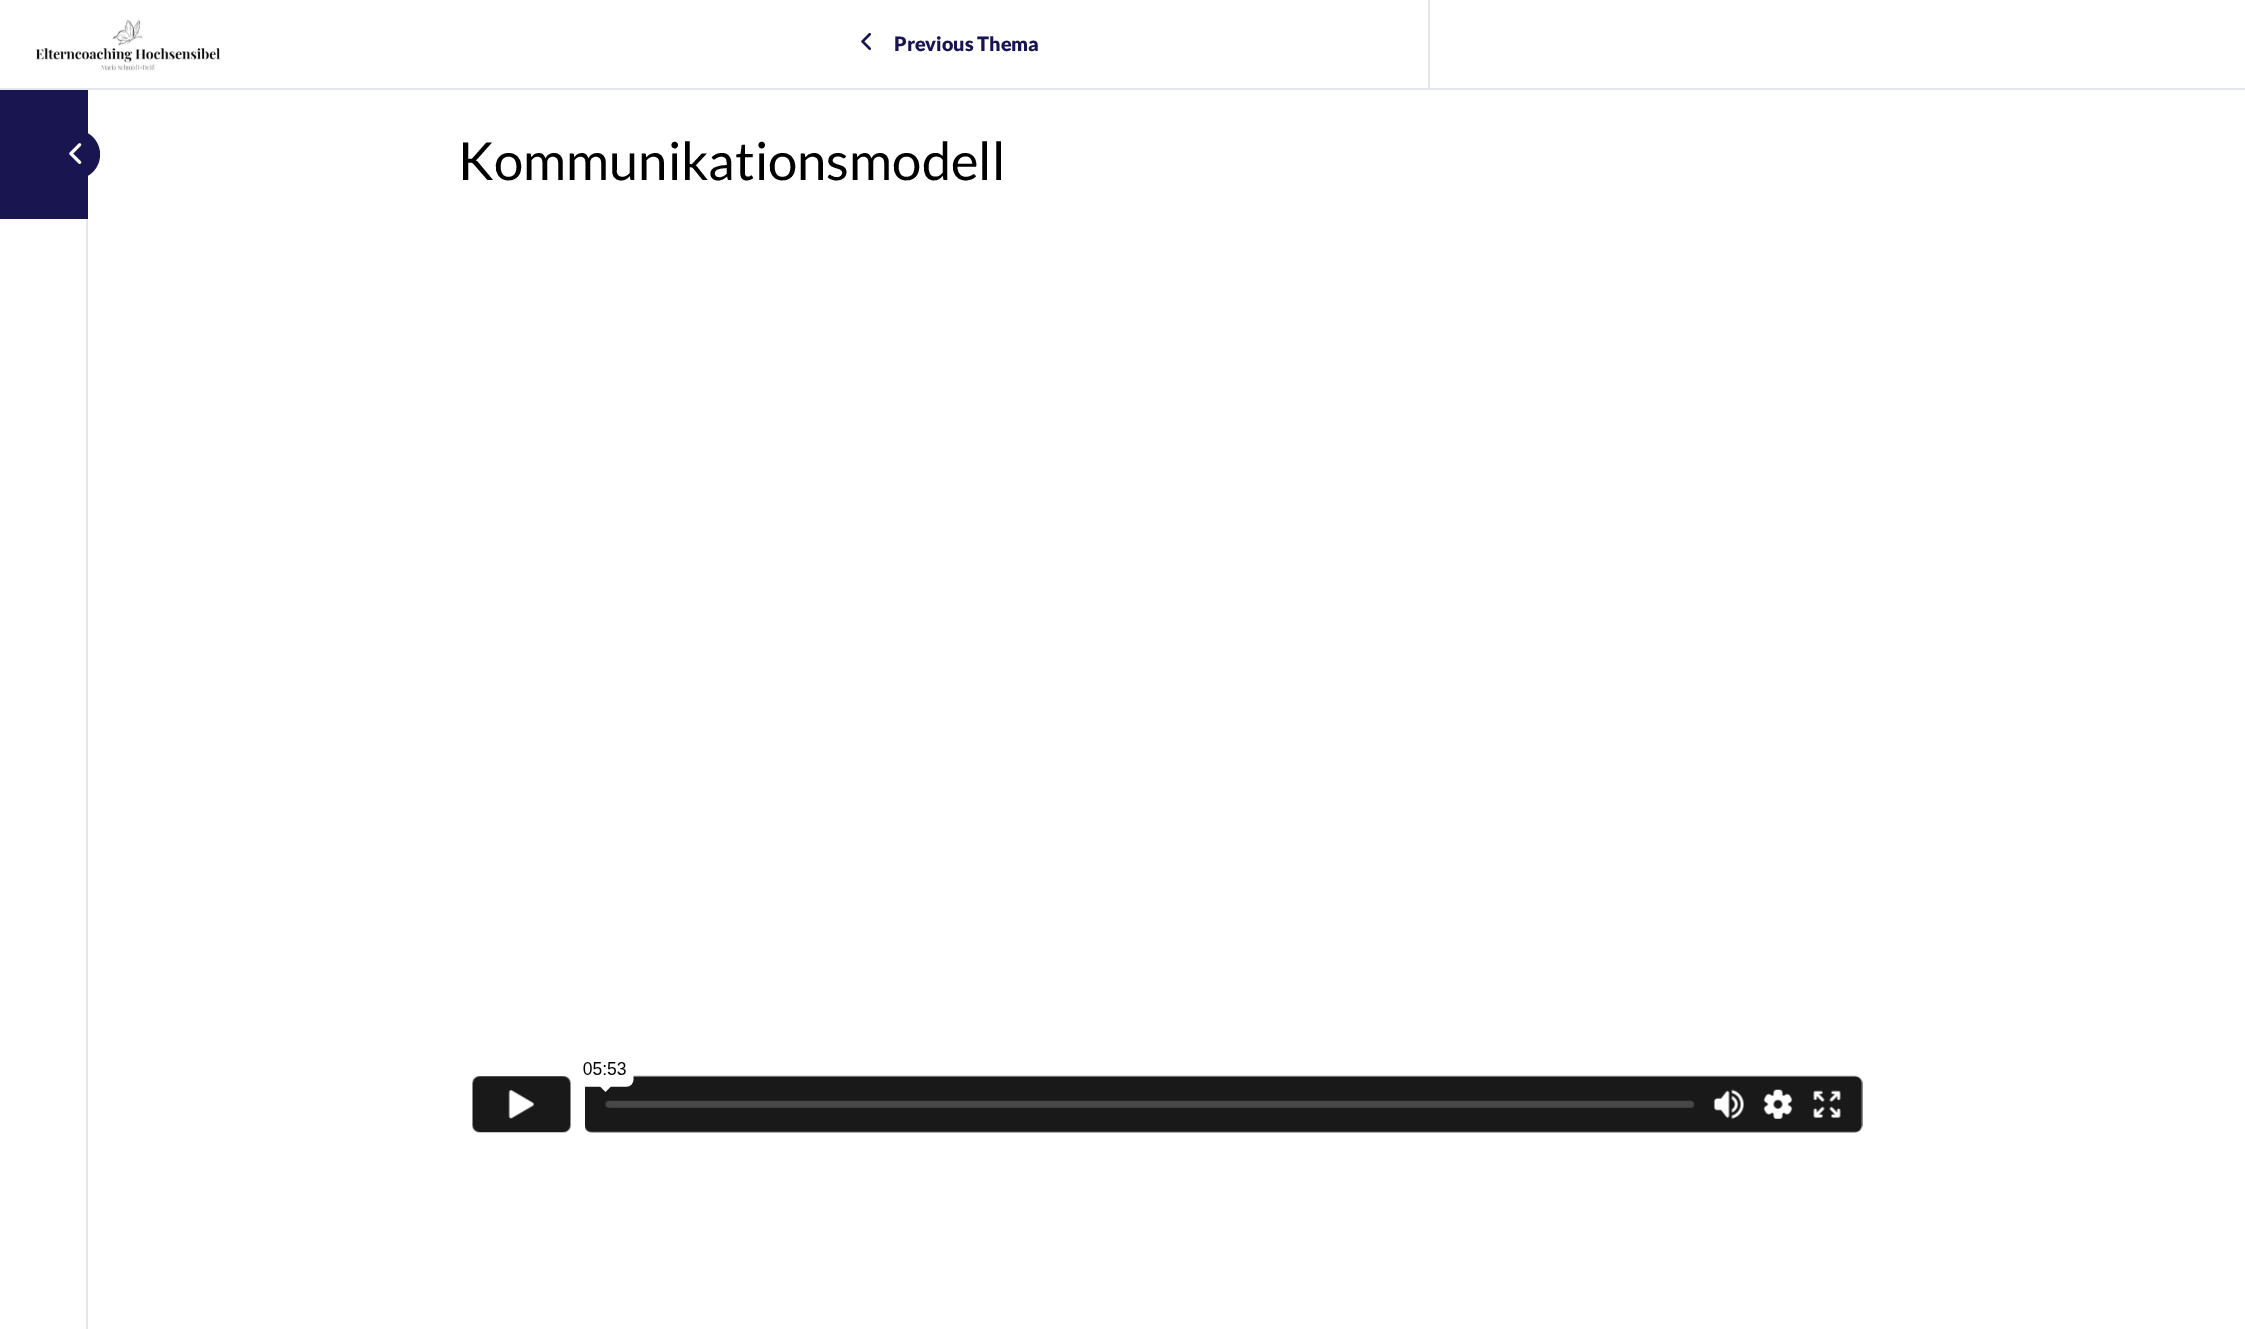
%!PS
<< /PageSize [2245 1329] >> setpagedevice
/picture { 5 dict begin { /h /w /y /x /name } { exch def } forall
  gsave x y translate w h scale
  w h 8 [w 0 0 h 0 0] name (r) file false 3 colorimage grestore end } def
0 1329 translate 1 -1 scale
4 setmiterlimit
1 setgray
0 0 2245 1329 rectfill
0.886 0.906 0.929 setrgbcolor
86 219 2 1110 rectfill
0.098 0.082 0.318 setrgbcolor
0 90 88 129 rectfill
newpath 75.5 154.5 24.5 0 360 arc closepath fill
(img1.rgb) 69 143 13 21 picture
0.886 0.906 0.929 setrgbcolor
0 88 2245 2 rectfill
(img2.rgb) 35 19 186 52 picture
1428 0 2 88 rectfill
(img3.rgb) 861 32 10 18 picture
/Lato-Black [19.75 0 0 -19.75 0 0] selectfont
0.098 0.082 0.318 setrgbcolor
894 51 moveto (Previous Thema) show
/Lato-Regular [52.5 0 0 -52.5 0 0] selectfont
0 setgray
458 180 moveto (Kommunikationsmodell) show
(img4.rgb) 472 1062 1391 71 picture
showpage
